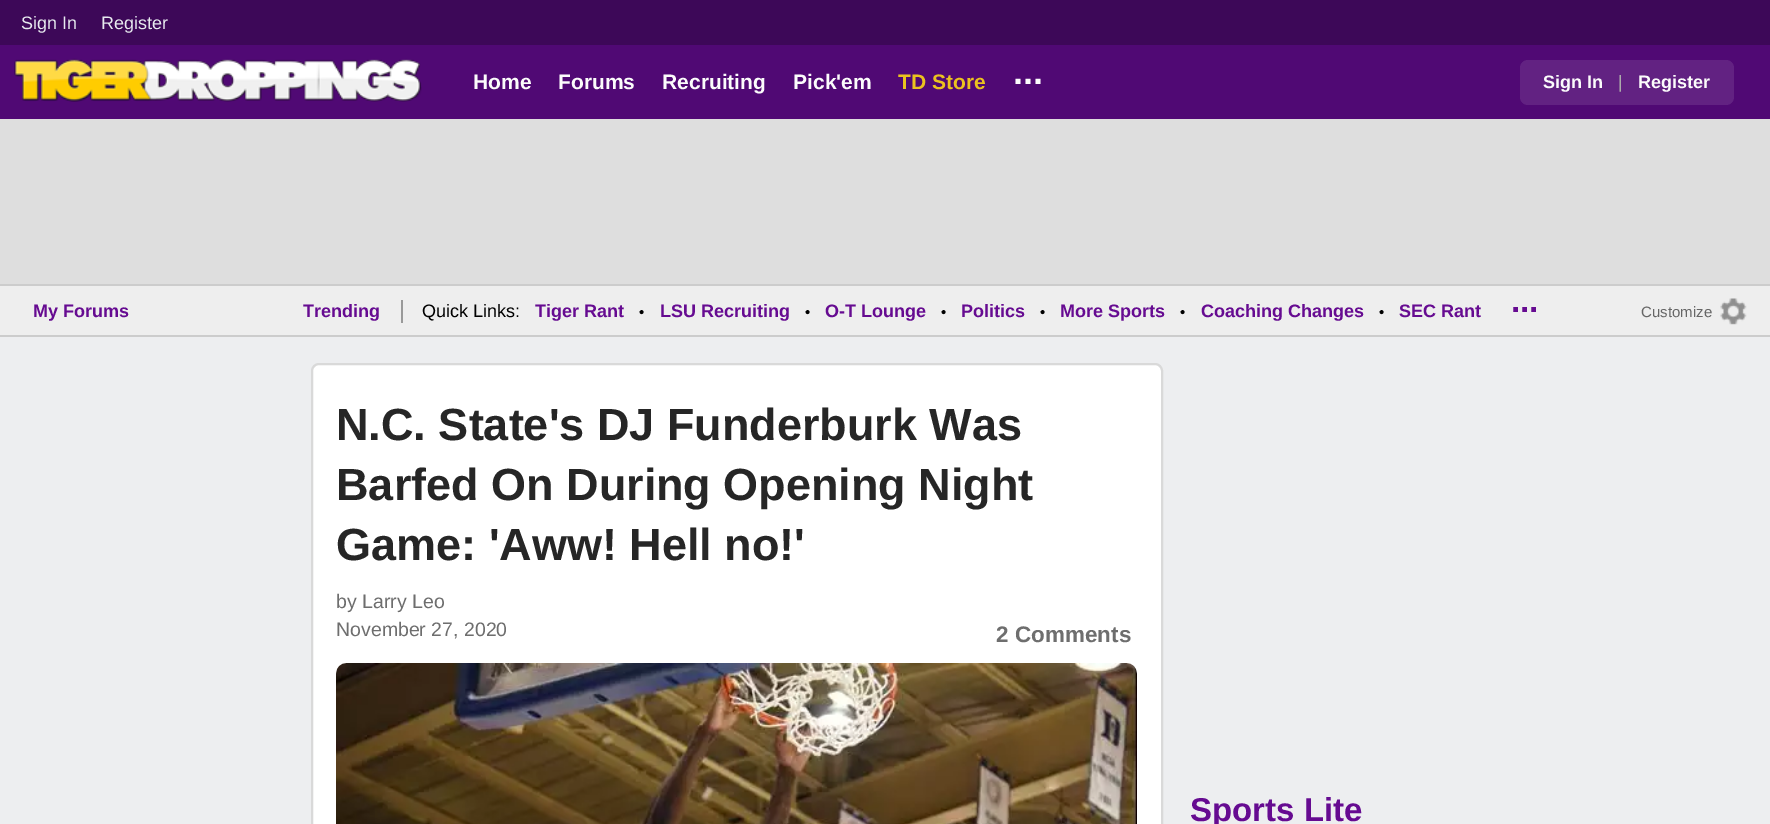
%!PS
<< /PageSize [1770 824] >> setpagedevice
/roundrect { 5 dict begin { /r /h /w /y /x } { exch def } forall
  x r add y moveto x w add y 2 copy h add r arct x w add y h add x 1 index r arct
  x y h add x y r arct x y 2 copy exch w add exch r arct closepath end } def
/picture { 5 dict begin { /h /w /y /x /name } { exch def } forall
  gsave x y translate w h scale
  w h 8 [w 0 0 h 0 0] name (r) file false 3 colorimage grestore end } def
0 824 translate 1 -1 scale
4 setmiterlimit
0.871 setgray
0 0 1770 824 rectfill
0.239 0.031 0.345 setrgbcolor
0 0 1770 45 rectfill
/LiberationSans-Regular [18 0 0 -18 0 0] selectfont
0.906 0.914 0.937 setrgbcolor
21 29 moveto (Sign In) show
101 29 moveto (Register) show
0.314 0.035 0.455 setrgbcolor
0 45 1770 74 rectfill
(img1.rgb) 14 58 408 44 picture
/LiberationSans-Bold [21 0 0 -21 0 0] selectfont
0.988 setgray
473 89 moveto (Home) show
558 89 moveto (Forums) show
662 89 moveto (Recruiting) show
793 89 moveto (Pick'em) show
0.922 0.761 0.122 setrgbcolor
898 89 moveto (TD Store) show
/LiberationSans-Bold [36 0 0 -36 0 0] selectfont
0.988 setgray
1013 84 moveto (...) show
0.384 0.133 0.51 setrgbcolor
1520 60 214 45 8 roundrect fill
/LiberationSans-Bold [18 0 0 -18 0 0] selectfont
0.988 setgray
1543 88 moveto (Sign In) show
/LiberationSans-Regular [18 0 0 -18 0 0] selectfont
0.671 setgray
1618 88 moveto (|) show
/LiberationSans-Bold [18 0 0 -18 0 0] selectfont
0.988 setgray
1638 88 moveto (Register) show
0.933 setgray
0 286 1770 49 rectfill
0.8 setgray
0 284 1770 2 rectfill
0 335 1770 2 rectfill
0.4 0.043 0.569 setrgbcolor
33 317 moveto (My Forums) show
303 317 moveto (Trending) show
0.6 setgray
401 300 2 23 rectfill
/LiberationSans-Regular [18 0 0 -18 0 0] selectfont
0 setgray
422 317 moveto (Quick Links:) show
/LiberationSans-Bold [18 0 0 -18 0 0] selectfont
0.4 0.043 0.569 setrgbcolor
535 317 moveto (Tiger Rant) show
/LiberationSans-Regular [15 0 0 -15 0 0] selectfont
0 setgray
639 317 moveto (•) show
/LiberationSans-Bold [18 0 0 -18 0 0] selectfont
0.4 0.043 0.569 setrgbcolor
660 317 moveto (LSU Recruiting) show
/LiberationSans-Regular [15 0 0 -15 0 0] selectfont
0 setgray
805 317 moveto (•) show
/LiberationSans-Bold [18 0 0 -18 0 0] selectfont
0.4 0.043 0.569 setrgbcolor
825 317 moveto (O-T Lounge) show
/LiberationSans-Regular [15 0 0 -15 0 0] selectfont
0 setgray
941 317 moveto (•) show
/LiberationSans-Bold [18 0 0 -18 0 0] selectfont
0.4 0.043 0.569 setrgbcolor
961 317 moveto (Politics) show
/LiberationSans-Regular [15 0 0 -15 0 0] selectfont
0 setgray
1040 317 moveto (•) show
/LiberationSans-Bold [18 0 0 -18 0 0] selectfont
0.4 0.043 0.569 setrgbcolor
1060 317 moveto (More Sports) show
/LiberationSans-Regular [15 0 0 -15 0 0] selectfont
0 setgray
1180 317 moveto (•) show
/LiberationSans-Bold [18 0 0 -18 0 0] selectfont
0.4 0.043 0.569 setrgbcolor
1201 317 moveto (Coaching Changes) show
/LiberationSans-Regular [15 0 0 -15 0 0] selectfont
0 setgray
1379 317 moveto (•) show
/LiberationSans-Bold [18 0 0 -18 0 0] selectfont
0.4 0.043 0.569 setrgbcolor
1399 317 moveto (SEC Rant) show
/LiberationSans-Bold [33 0 0 -33 0 0] selectfont
1511 312 moveto (...) show
/LiberationSans-Regular [15 0 0 -15 0 0] selectfont
0.4 setgray
1641 317 moveto (Customize) show
(img2.rgb) 1720 298 27 27 picture
0.929 0.933 0.941 setrgbcolor
0 337 1770 487 rectfill
1 setgray
312 364 850 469 7 roundrect gsave fill grestore
0.851 setgray
2 setlinewidth
stroke
/LiberationSans-Bold [45 0 0 -45 0 0] selectfont
0.149 setgray
336 440 moveto (N.C. State's DJ Funderburk Was) show
336 500 moveto (Barfed On During Opening Night) show
336 560 moveto (Game: 'Aww! Hell no!') show
/LiberationSans-Regular [19.5 0 0 -19.5 0 0] selectfont
0.431 setgray
336 608 moveto (by Larry Leo) show
336 636 moveto (November 27, 2020) show
/LiberationSans-Bold [22.5 0 0 -22.5 0 0] selectfont
996 642 moveto (2 Comments) show
(img3.rgb) 336 663 801 161 picture
/LiberationSans-Bold [33 0 0 -33 0 0] selectfont
0.4 0.043 0.569 setrgbcolor
1190 821 moveto (Sports Lite) show
showpage
